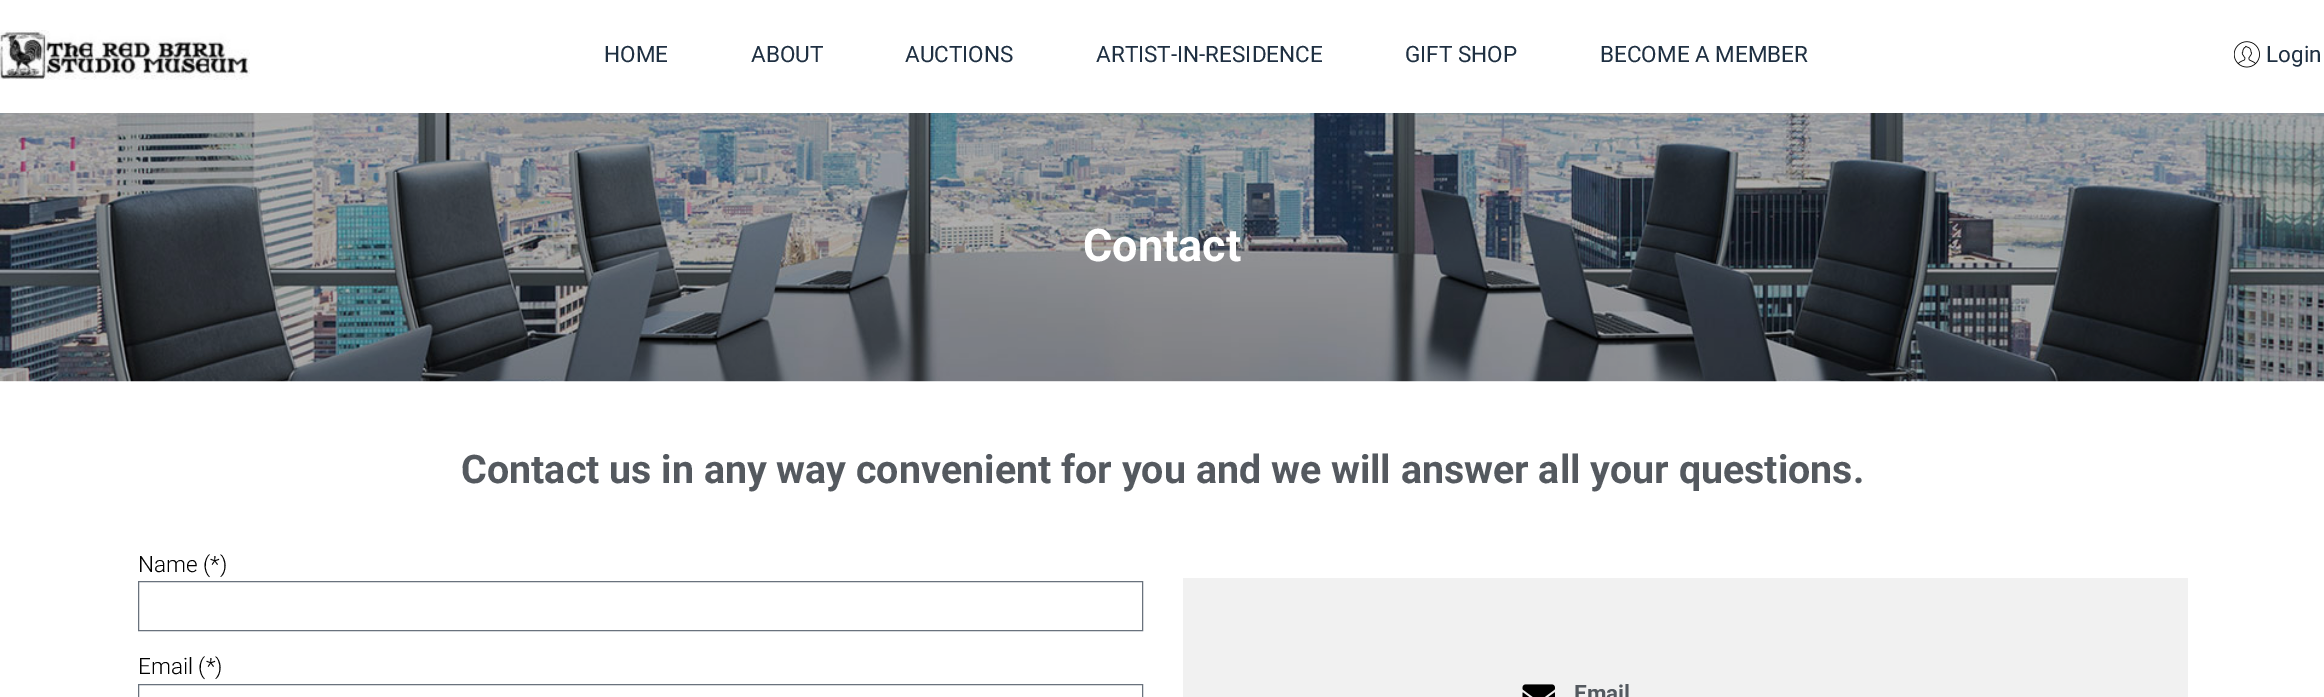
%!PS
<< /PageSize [2324 697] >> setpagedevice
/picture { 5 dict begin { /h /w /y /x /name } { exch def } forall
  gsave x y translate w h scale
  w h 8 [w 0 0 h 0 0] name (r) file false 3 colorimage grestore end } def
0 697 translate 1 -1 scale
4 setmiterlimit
1 setgray
0 0 2324 697 rectfill
(img1.rgb) 0 30 250 50 picture
/Roboto-Regular [22.5 0 0 -22.5 0 0] selectfont
0.122 0.188 0.259 setrgbcolor
604 62 moveto (HOME) show
751 62 moveto (ABOUT) show
905 62 moveto (AUCTIONS) show
1096 62 moveto (ARTIST-IN-RESIDENCE) show
1405 62 moveto (GIFT SHOP) show
1600 62 moveto (BECOME A MEMBER) show
(img2.rgb) 2234 41 26 27 picture
2266 62 moveto (Login) show
(img3.rgb) 0 113 2324 269 picture
/Roboto-Bold [45 0 0 -45 0 0] selectfont
1 setgray
1083 261 moveto (Contact) show
/Roboto-Bold [39.4 0 0 -39.4 0 0] selectfont
0.329 0.349 0.373 setrgbcolor
461 483 moveto (Contact us in any way convenient for you and we will answer all your questions.) show
/Roboto-Light [22.5 0 0 -22.5 0 0] selectfont
0 setgray
138 572 moveto (Name \(*\)) show
0.412 0.447 0.49 setrgbcolor
138.5 581.5 1004 49 rectstroke
0 setgray
138 674 moveto (Email \(*\)) show
0.412 0.447 0.49 setrgbcolor
138.5 684.5 1004 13 rectstroke
0.945 setgray
1183 578 1005 119 rectfill
(img4.rgb) 1522 684 33 13 picture
/Roboto-Bold [22.5 0 0 -22.5 0 0] selectfont
0.329 0.349 0.373 setrgbcolor
1574 701 moveto (Email) show
showpage
